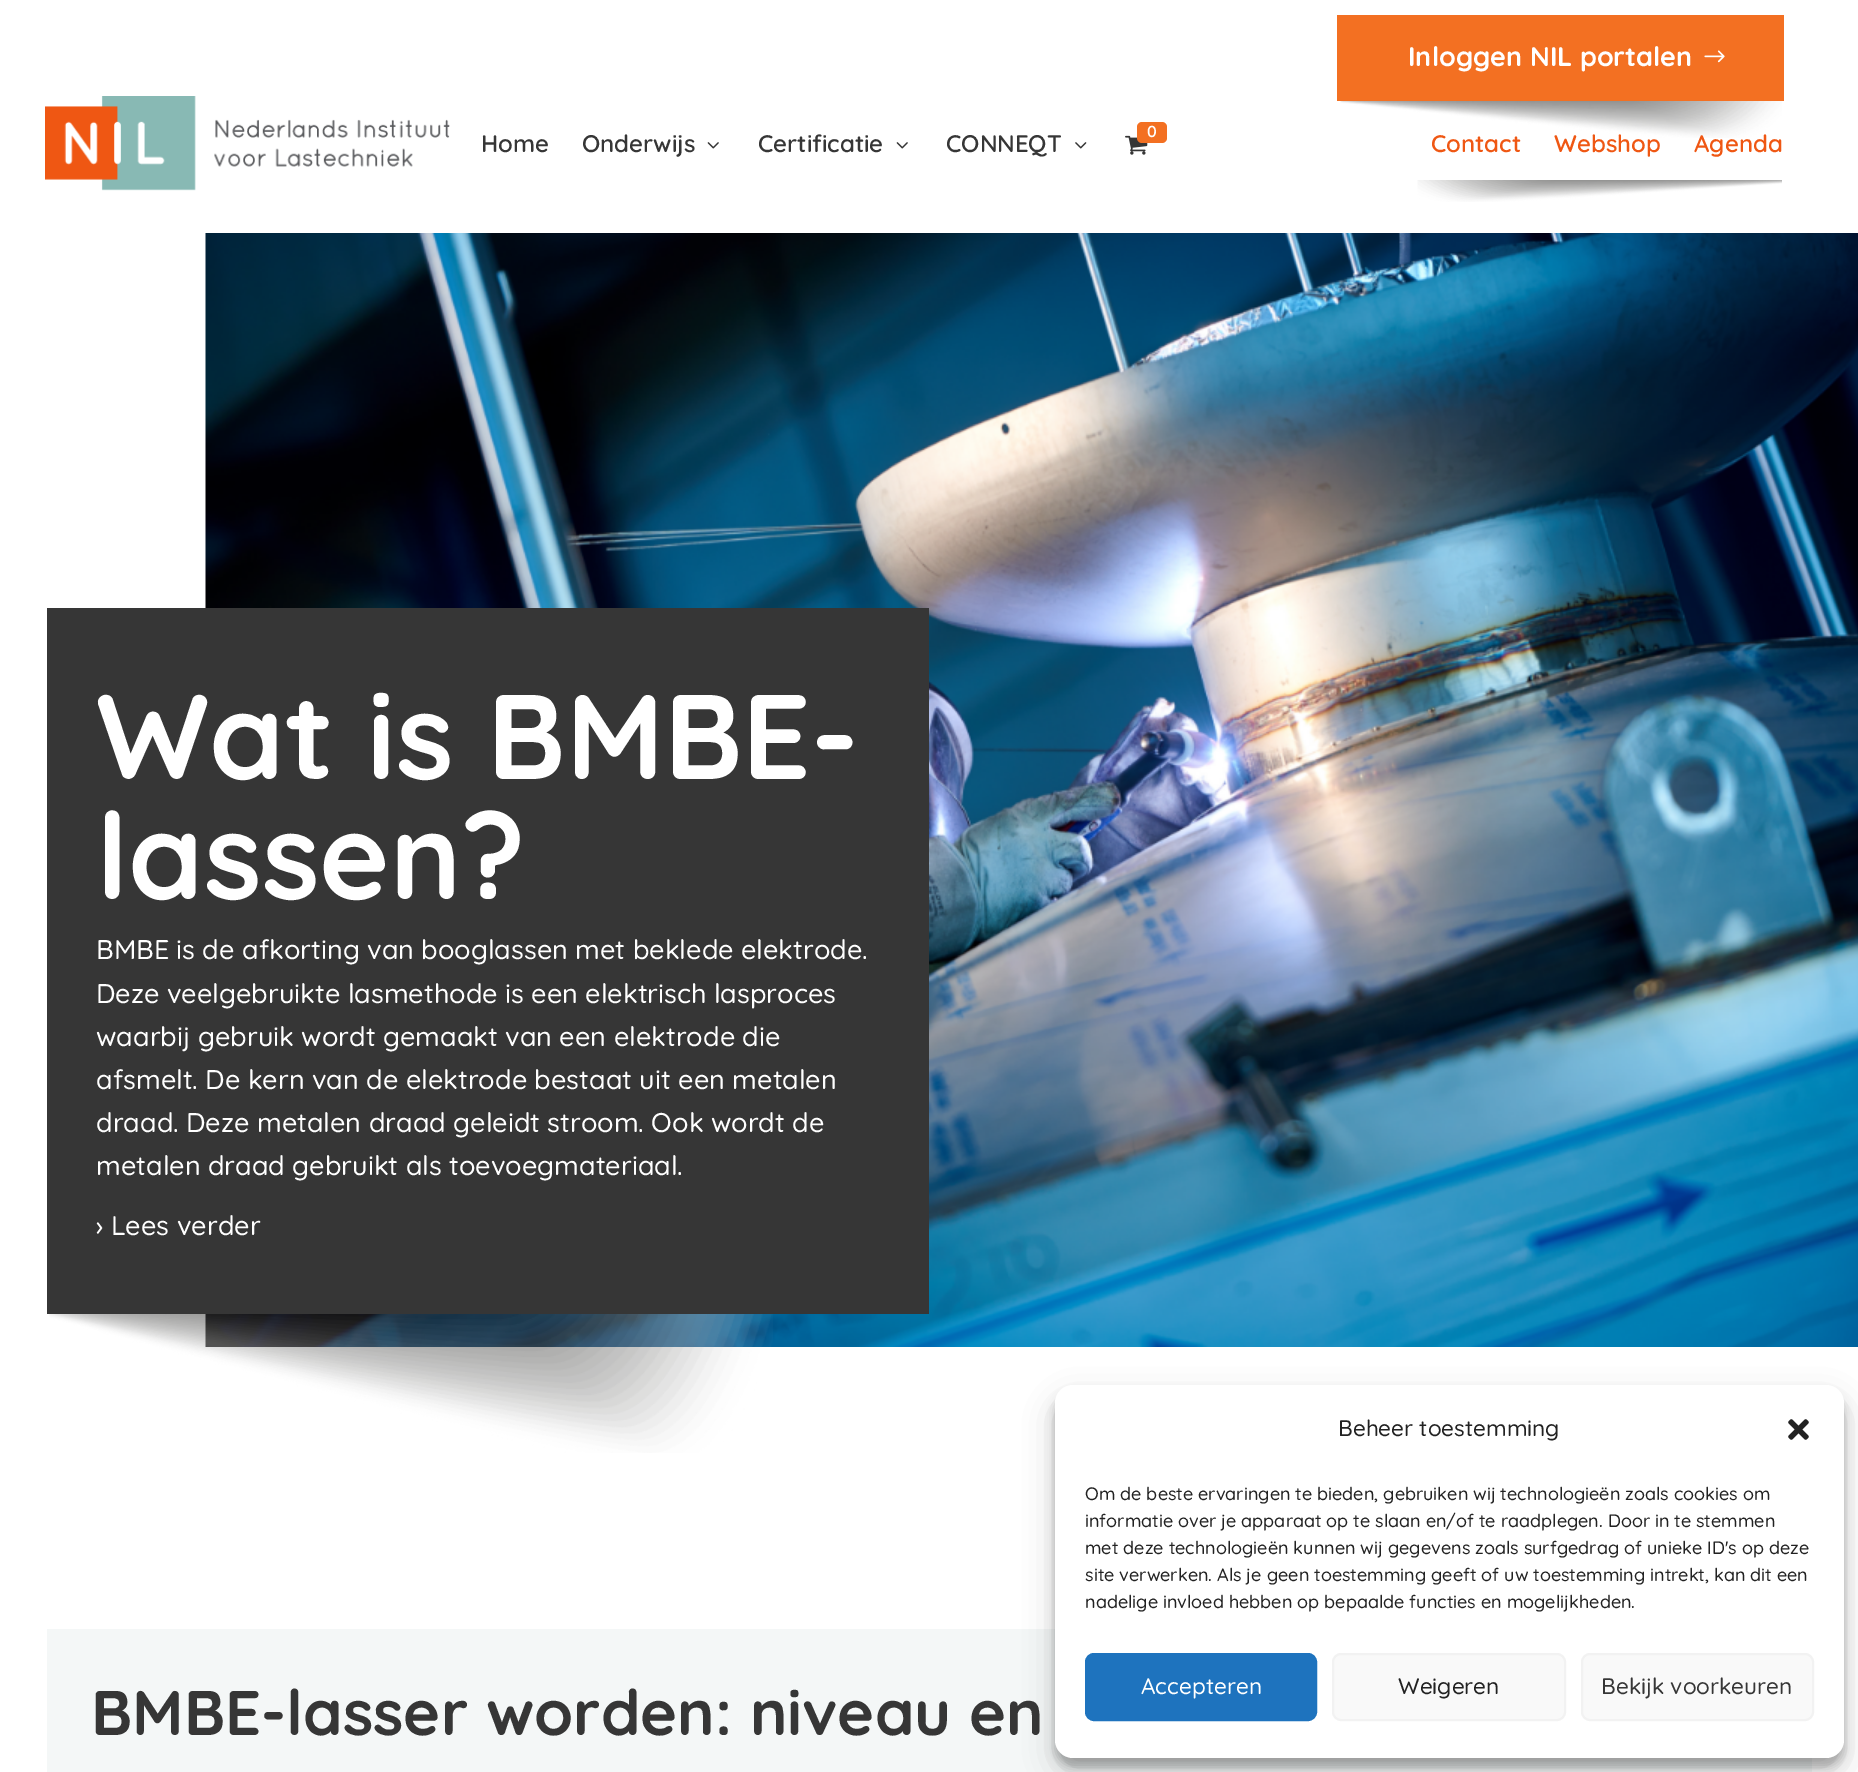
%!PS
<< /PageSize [1858 1772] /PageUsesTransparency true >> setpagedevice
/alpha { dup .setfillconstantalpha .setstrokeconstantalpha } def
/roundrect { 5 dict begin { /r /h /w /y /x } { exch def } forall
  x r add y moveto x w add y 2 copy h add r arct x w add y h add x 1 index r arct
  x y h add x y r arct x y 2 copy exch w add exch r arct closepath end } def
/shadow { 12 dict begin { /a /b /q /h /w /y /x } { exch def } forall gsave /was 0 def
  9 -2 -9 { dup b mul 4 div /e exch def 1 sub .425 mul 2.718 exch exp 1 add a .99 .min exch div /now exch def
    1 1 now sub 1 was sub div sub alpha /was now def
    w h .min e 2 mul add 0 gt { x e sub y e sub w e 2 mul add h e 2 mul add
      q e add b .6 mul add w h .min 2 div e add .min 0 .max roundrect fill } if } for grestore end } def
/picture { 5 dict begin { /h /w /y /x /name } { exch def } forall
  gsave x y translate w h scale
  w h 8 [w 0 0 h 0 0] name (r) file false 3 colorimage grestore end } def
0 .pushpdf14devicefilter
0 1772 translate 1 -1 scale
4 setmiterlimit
1 setgray
0 0 1858 1772 rectfill
0.953 0.439 0.133 setrgbcolor
1337 15 447 86 rectfill
/Quicksand-Bold [27 0 0 -27 0 0] selectfont
1 setgray
1408 66 moveto (Inloggen NIL portalen) show
(img1.rgb) 1704 50 21 13 picture
(img2.rgb) 1340 101 442 37 picture
(img3.rgb) 1417 180 365 22 picture
(img4.rgb) 45 96 405 95 picture
(img5.rgb) 1125 135 23 20 picture
0.953 0.439 0.133 setrgbcolor
1137 122 30 21 5 roundrect fill
/Quicksand-SemiBold [16 0 0 -16 0 0] selectfont
1 setgray
1147 137 moveto 45 0 32 (0) widthshow
/Quicksand-SemiBold [24 0 0 -24 0 0] selectfont
0.212 setgray
481 152 moveto (Home) show
582 152 moveto (Onderwijs) show
(img6.rgb) 707 142 12 7 picture
758 152 moveto (Certificatie) show
(img6.rgb) 896 142 12 7 picture
946 152 moveto (CONNEQT) show
(img7.rgb) 1075 142 12 7 picture
0.937 0.341 0.075 setrgbcolor
1431 152 moveto (Contact) show
1554 152 moveto (Webshop) show
1694 152 moveto (Agenda) show
(img8.rgb) 205 233 1653 1114 picture
0.212 setgray
47 608 882 706 rectfill
/Quicksand-Bold [120 0 0 -120 0 0] selectfont
1 setgray
96 779 moveto (Wat is BMBE-) show
96 899 moveto (lassen?) show
/Quicksand-Medium [27 0 0 -27 0 0] selectfont
96 959 moveto (BMBE is de afkorting van booglassen met beklede elektrode.) show
96 1003 moveto (Deze veelgebruikte lasmethode is een elektrisch lasproces) show
96 1046 moveto (waarbij gebruik wordt gemaakt van een elektrode die) show
96 1089 moveto (afsmelt. De kern van de elektrode bestaat uit een metalen) show
96 1132 moveto (draad. Deze metalen draad geleidt stroom. Ook wordt de) show
96 1175 moveto (metalen draad gebruikt als toevoegmateriaal.) show
96 1235 moveto (› Lees verder) show
(img9.rgb) 49 1314 724 139 picture
0.957 0.969 0.969 setrgbcolor
47 1629 1765 143 rectfill
/Quicksand-Bold [63 0 0 -63 0 0] selectfont
0.212 setgray
91 1735 moveto (BMBE-lasser worden: niveau en) show
0 setgray
1055 1394 789 373 18 4.5 0.23 shadow
1055 1400 789 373 18 15 0.19 shadow
1 setgray
1055 1385 789 373 18 roundrect fill
/Quicksand-Medium [22.5 0 0 -22.5 0 0] selectfont
0.133 setgray
1338 1436 moveto (Beheer toestemming) show
(img10.rgb) 1788 1419 21 21 picture
/Quicksand-Medium [18 0 0 -18 0 0] selectfont
1085 1500 moveto (Om de beste ervaringen te bieden, gebruiken wij technologieën zoals cookies om) show
1085 1527 moveto (informatie over je apparaat op te slaan en/of te raadplegen. Door in te stemmen) show
1085 1554 moveto (met deze technologieën kunnen wij gegevens zoals surfgedrag of unieke ID's op deze) show
1085 1581 moveto (site verwerken. Als je geen toestemming geeft of uw toestemming intrekt, kan dit een) show
1085 1608 moveto (nadelige invloed hebben op bepaalde functies en mogelijkheden.) show
0.118 0.451 0.745 setrgbcolor
1086 1654 230 66 8 roundrect gsave fill grestore
2 setlinewidth
stroke
/Quicksand-Medium [22.5 0 0 -22.5 0 0] selectfont
1 setgray
1141 1694 moveto (Accepteren) show
0.976 setgray
1333 1654 232 66 8 roundrect gsave fill grestore
0.949 setgray
stroke
0.133 setgray
1398 1694 moveto (Weigeren) show
0.976 setgray
1582 1654 231 66 8 roundrect gsave fill grestore
0.949 setgray
stroke
0.212 setgray
1601 1694 moveto (Bekijk voorkeuren) show
.poppdf14devicefilter showpage
